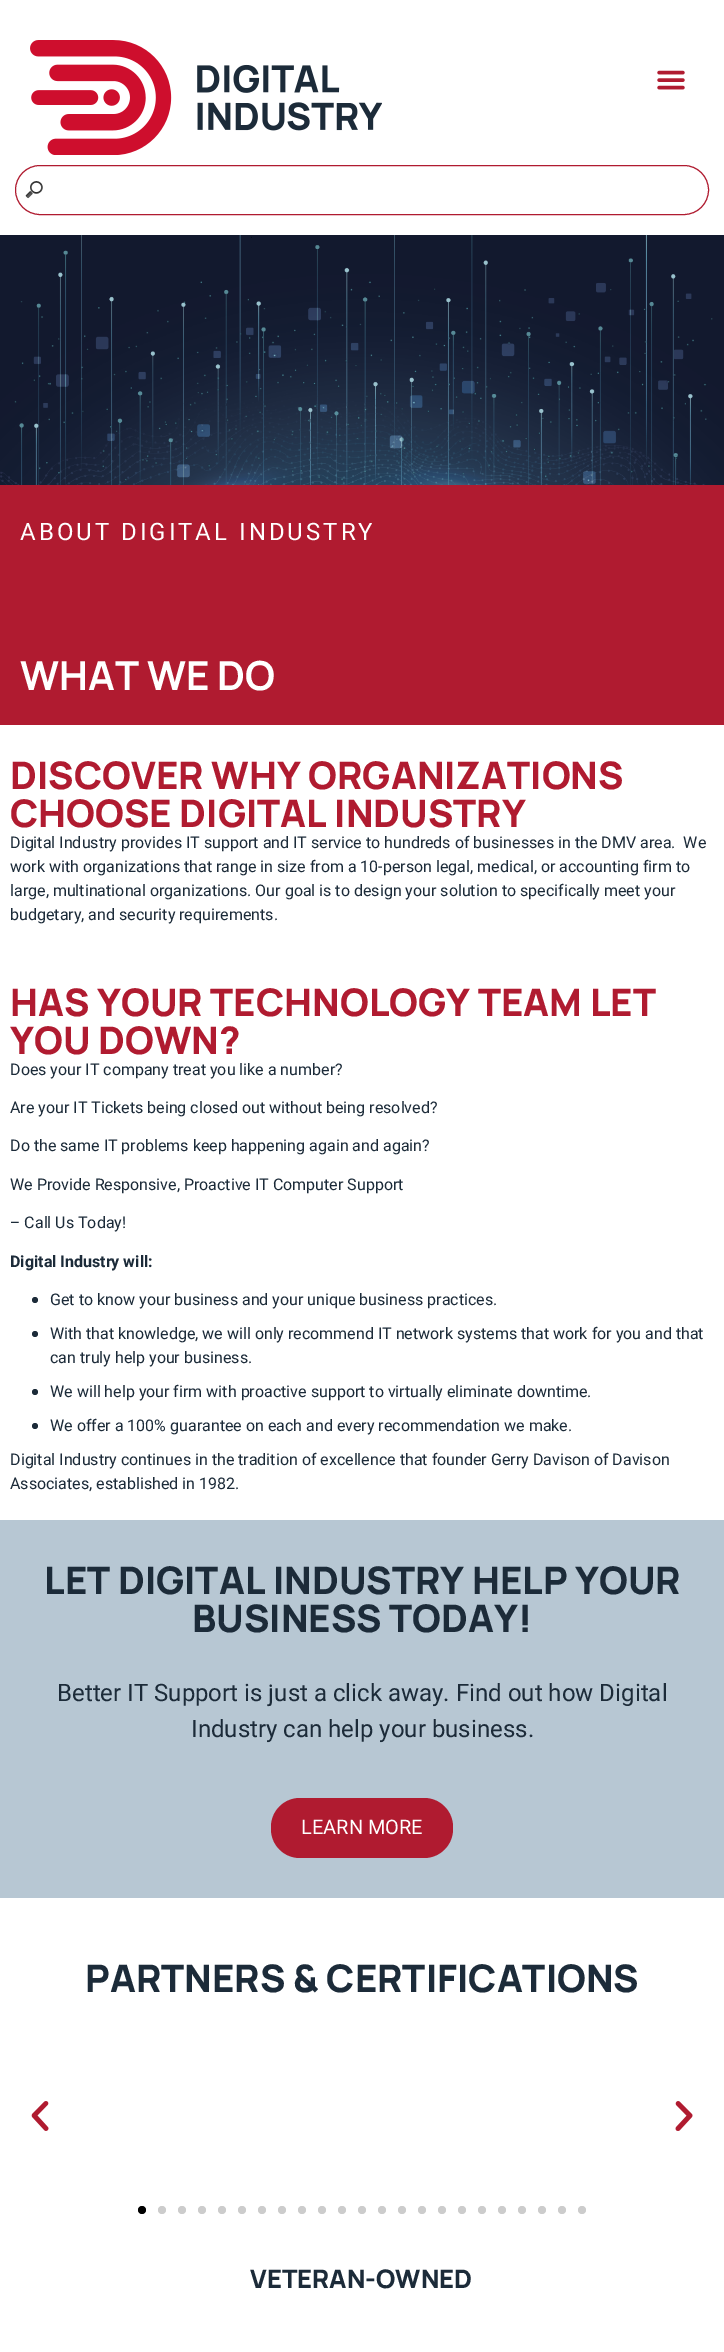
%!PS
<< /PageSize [724 2352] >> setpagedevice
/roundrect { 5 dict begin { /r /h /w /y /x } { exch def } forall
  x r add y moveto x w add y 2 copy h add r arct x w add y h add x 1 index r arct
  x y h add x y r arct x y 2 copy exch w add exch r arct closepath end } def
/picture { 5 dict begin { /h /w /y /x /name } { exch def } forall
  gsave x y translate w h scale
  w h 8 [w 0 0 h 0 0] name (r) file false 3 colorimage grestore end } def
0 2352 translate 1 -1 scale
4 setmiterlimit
1 setgray
0 0 724 2352 rectfill
(img1.rgb) 30 40 352 115 picture
(img2.rgb) 657 70 28 20 picture
(img3.rgb) 25 181 18 18 picture
0.69 0.106 0.188 setrgbcolor
15.5 165.5 693 49 24.5 roundrect stroke
(img4.rgb) 0 235 724 250 picture
0 485 724 240 rectfill
/Heebo-Regular [24 0 0 -24 0 0] selectfont
1 setgray
20 540 moveto 3 0 (ABOUT DIGITAL INDUSTRY) ashow
/Manrope-Bold [40 0 0 -40 0 0] selectfont
20 690 moveto (WHAT WE DO) show
/Manrope-ExtraBold [38 0 0 -38 0 0] selectfont
0.69 0.106 0.188 setrgbcolor
10 789 moveto (DISCOVER WHY ORGANIZATIONS) show
10 827 moveto (CHOOSE DIGITAL INDUSTRY) show
/Heebo-Regular [16 0 0 -16 0 0] selectfont
0.11 0.169 0.224 setrgbcolor
10 848 moveto (Digital Industry provides IT support and IT service to hundreds of businesses in the DMV area.  We) show
10 872 moveto (work with organizations that range in size from a 10-person legal, medical, or accounting firm to) show
10 896 moveto (large, multinational organizations. Our goal is to design your solution to specifically meet your) show
10 920 moveto (budgetary, and security requirements.) show
/Manrope-ExtraBold [38 0 0 -38 0 0] selectfont
0.69 0.106 0.188 setrgbcolor
10 1016 moveto (HAS YOUR TECHNOLOGY TEAM LET) show
10 1054 moveto (YOU DOWN?) show
/Heebo-Regular [16 0 0 -16 0 0] selectfont
0.11 0.169 0.224 setrgbcolor
10 1075 moveto (Does your IT company treat you like a number?) show
10 1113 moveto (Are your IT Tickets being closed out without being resolved?) show
10 1151 moveto (Do the same IT problems keep happening again and again?) show
10 1190 moveto (We Provide Responsive, Proactive IT Computer Support) show
10 1228 moveto (– Call Us Today!) show
/Heebo-Bold [16 0 0 -16 0 0] selectfont
10 1267 moveto (Digital Industry will:) show
newpath 35 1300 3 0 360 arc closepath fill
/Heebo-Regular [16 0 0 -16 0 0] selectfont
50 1305 moveto (Get to know your business and your unique business practices.) show
newpath 35 1334 3 0 360 arc closepath fill
50 1339 moveto (With that knowledge, we will only recommend IT network systems that work for you and that) show
50 1363 moveto (can truly help your business.) show
newpath 35 1392 3 0 360 arc closepath fill
50 1397 moveto (We will help your firm with proactive support to virtually eliminate downtime.) show
newpath 35 1426 3 0 360 arc closepath fill
50 1431 moveto (We offer a 100% guarantee on each and every recommendation we make.) show
10 1465 moveto (Digital Industry continues in the tradition of excellence that founder Gerry Davison of Davison) show
10 1489 moveto (Associates, established in 1982.) show
0.718 0.78 0.827 setrgbcolor
0 1520 724 378 rectfill
/Manrope-ExtraBold [38 0 0 -38 0 0] selectfont
0.11 0.169 0.224 setrgbcolor
44 1594 moveto (LET DIGITAL INDUSTRY HELP YOUR) show
192 1632 moveto (BUSINESS TODAY!) show
/Heebo-Regular [24 0 0 -24 0 0] selectfont
57 1701 moveto (Better IT Support is just a click away. Find out how Digital) show
191 1737 moveto (Industry can help your business.) show
0.69 0.106 0.188 setrgbcolor
271 1798 182 60 29 roundrect fill
/Heebo-Regular [20 0 0 -20 0 0] selectfont
1 setgray
301 1834 moveto (LEARN MORE) show
/Manrope-ExtraBold [38 0 0 -38 0 0] selectfont
0.11 0.169 0.224 setrgbcolor
85 1992 moveto (PARTNERS & CERTIFICATIONS) show
(img5.rgb) 31 2101 18 30 picture
(img6.rgb) 675 2101 18 30 picture
0 setgray
newpath 142 2210 4 0 360 arc closepath fill
0.8 setgray
newpath 162 2210 4 0 360 arc closepath fill
newpath 182 2210 4 0 360 arc closepath fill
newpath 202 2210 4 0 360 arc closepath fill
newpath 222 2210 4 0 360 arc closepath fill
newpath 242 2210 4 0 360 arc closepath fill
newpath 262 2210 4 0 360 arc closepath fill
newpath 282 2210 4 0 360 arc closepath fill
newpath 302 2210 4 0 360 arc closepath fill
newpath 322 2210 4 0 360 arc closepath fill
newpath 342 2210 4 0 360 arc closepath fill
newpath 362 2210 4 0 360 arc closepath fill
newpath 382 2210 4 0 360 arc closepath fill
newpath 402 2210 4 0 360 arc closepath fill
newpath 422 2210 4 0 360 arc closepath fill
newpath 442 2210 4 0 360 arc closepath fill
newpath 462 2210 4 0 360 arc closepath fill
newpath 482 2210 4 0 360 arc closepath fill
newpath 502 2210 4 0 360 arc closepath fill
newpath 522 2210 4 0 360 arc closepath fill
newpath 542 2210 4 0 360 arc closepath fill
newpath 562 2210 4 0 360 arc closepath fill
newpath 582 2210 4 0 360 arc closepath fill
/Manrope-ExtraBold [25.5 0 0 -25.5 0 0] selectfont
0.11 0.169 0.224 setrgbcolor
250 2288 moveto (VETERAN-OWNED) show
showpage
